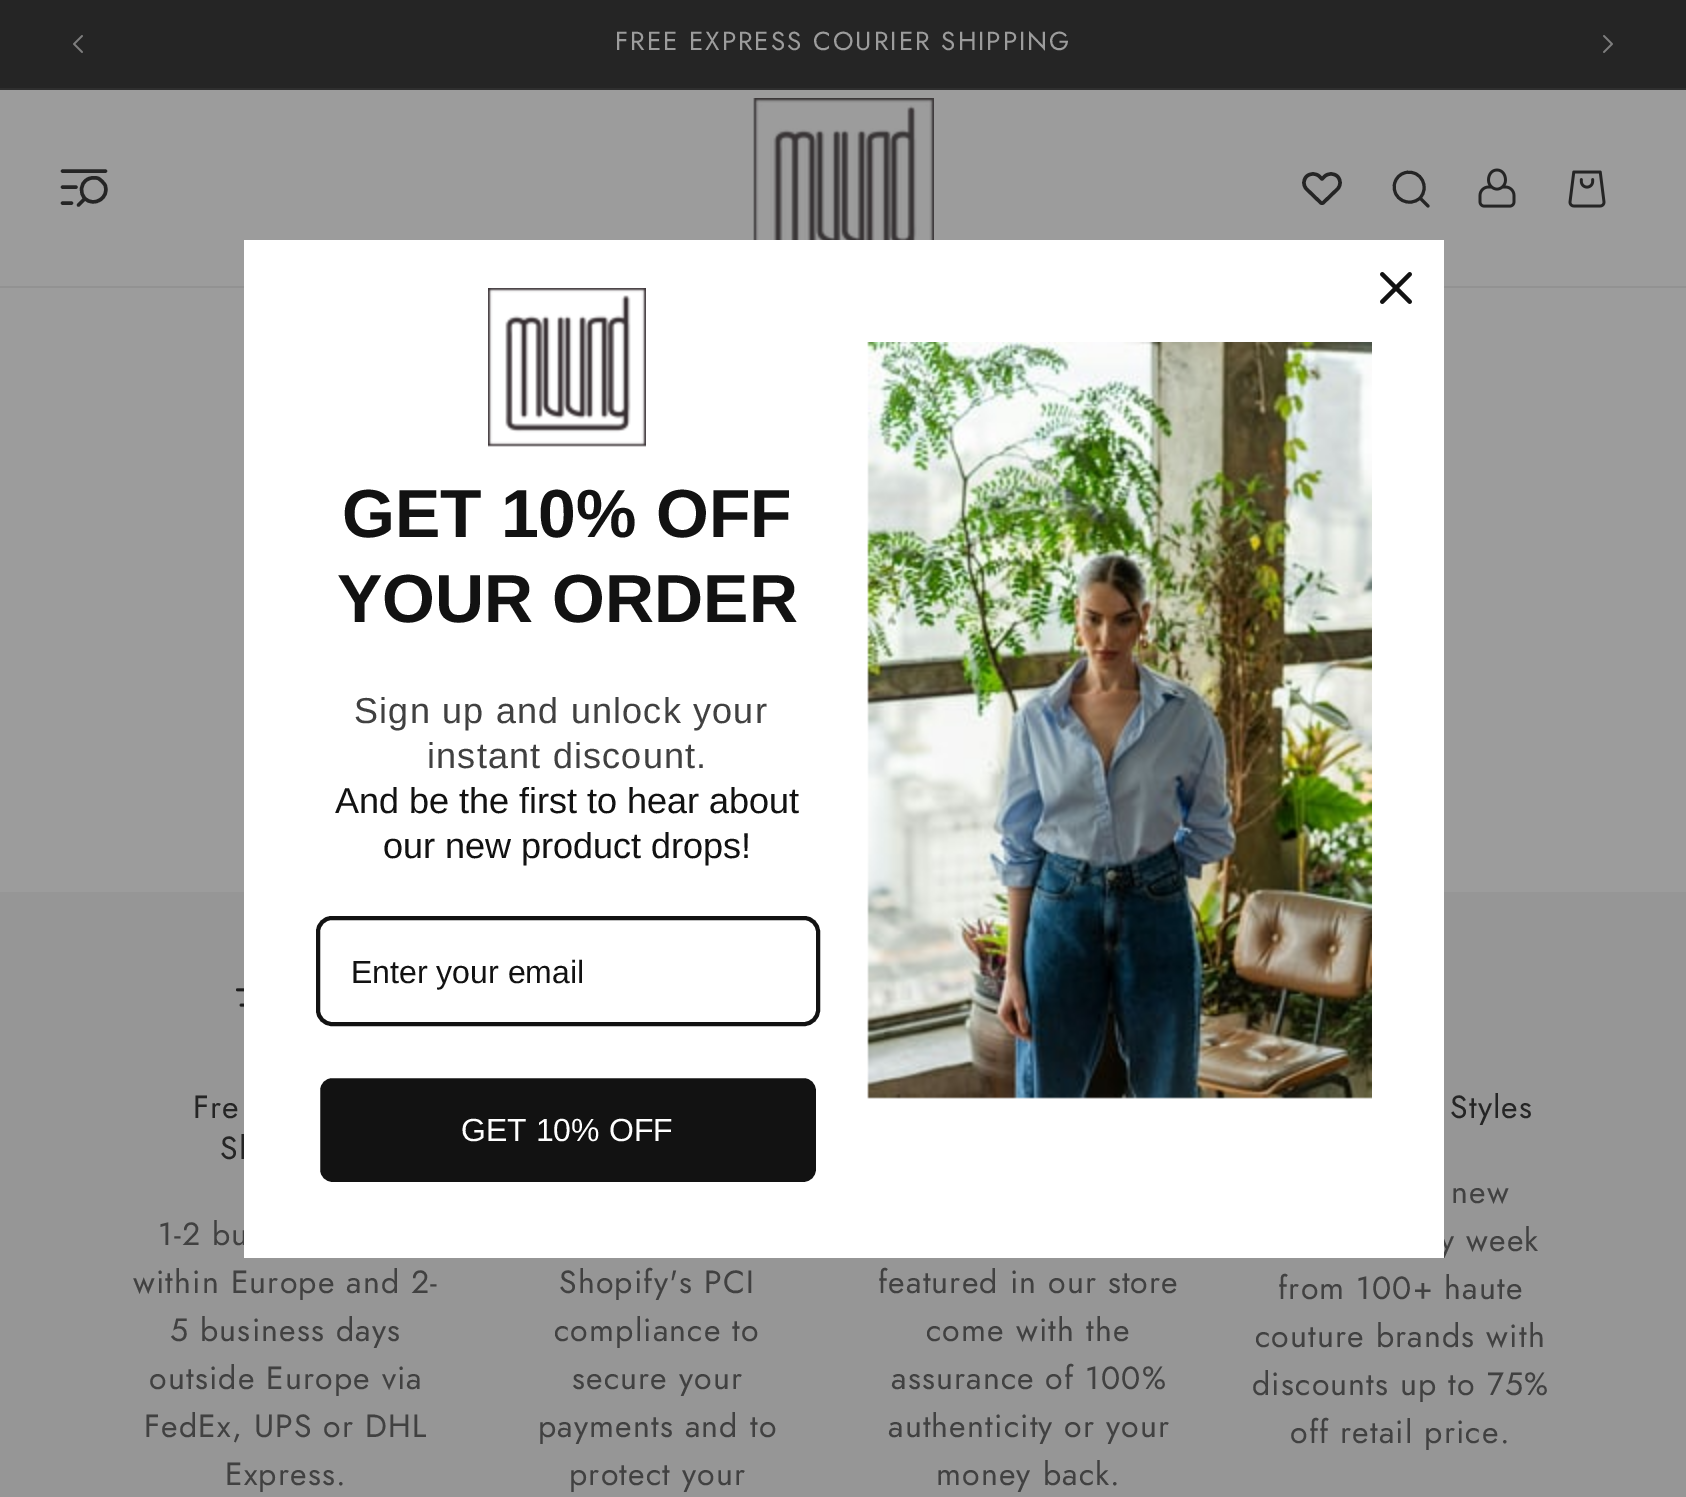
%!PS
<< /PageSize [1686 1497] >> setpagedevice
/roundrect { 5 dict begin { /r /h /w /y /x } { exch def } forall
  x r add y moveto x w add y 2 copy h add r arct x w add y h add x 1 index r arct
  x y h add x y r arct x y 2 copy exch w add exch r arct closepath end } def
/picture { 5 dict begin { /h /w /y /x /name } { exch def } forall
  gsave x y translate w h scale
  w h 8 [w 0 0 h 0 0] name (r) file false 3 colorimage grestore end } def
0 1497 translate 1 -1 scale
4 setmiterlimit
0.612 setgray
0 0 1686 1497 rectfill
0.145 setgray
0 0 1686 88 rectfill
0.184 setgray
0 88 1686 2 rectfill
(img1.rgb) 73 35 10 18 picture
/Jost-Regular [26 0 0 -26 0 0] selectfont
0.612 setgray
615 50 moveto 2 0 (FREE EXPRESS COURIER SHIPPING) ashow
(img2.rgb) 1603 35 10 18 picture
0.573 setgray
0 286 1686 2 rectfill
0.145 setgray
3.4 setlinewidth
1 setlinecap
1 setlinejoin
newpath 62.5 171 moveto 105.5 171 lineto 62.5 187 moveto 76 187 lineto 62.5 203 moveto 71.5 203 lineto 78.5 205 moveto 85 198.5 lineto 85 198.5 moveto 79.5 193 80.5 184 86.5 180 curveto 90 177.5 94.5 177 98.5 178.5 curveto 101 180 103.5 182.5 105 185 curveto 110 197.5 94 207.5 85 198.5 curveto closepath stroke
(img3.rgb) 753 98 181 142 picture
0 setlinecap
newpath 1306.5 176.5 moveto 1303 180 1303 185.5 1306.5 189 curveto 1320.5 202.5 lineto 1321.5 203.5 1322.5 203.5 1323.5 202.5 curveto 1337.5 189 lineto 1341 185.5 1341 180 1337.5 176.5 curveto 1334 173 1328 173 1324.5 176.5 curveto 1322 179 lineto 1319.5 176.5 lineto 1316 173 1310 173 1306.5 176.5 curveto closepath stroke
3 setlinewidth
1 setlinecap
newpath 1428 206 moveto 1420 198 lineto 1420 198 moveto 1430 187.5 1421 169.5 1406 172.5 curveto 1403 173 1400.5 174.5 1398.5 176.5 curveto 1396.5 178.5 1395 181 1394.5 184 curveto 1391.5 199 1409.5 208 1420 198 curveto closepath stroke
(img4.rgb) 1478 168 38 40 picture
(img5.rgb) 1568 170 38 38 picture
0.588 setgray
0 892 1686 605 rectfill
/Jost-Regular [32 0 0 -32 0 0] selectfont
0.145 setgray
220 1159 moveto 1.2 0 (Sh) ashow
0.255 setgray
158 1245 moveto 1.2 0 (1-2 bu) ashow
1440 1251 moveto 1.2 0 (y week) ashow
1 setgray
244 240 1200 1018 rectfill
(img6.rgb) 1380 272 32 32 picture
(img7.rgb) 488 288 158 159 picture
/LiberationSans-Bold [68 0 0 -68 0 0] selectfont
0.071 setgray
342 537 moveto (GET 10% OFF) show
337 622 moveto (YOUR ORDER) show
/LiberationSans-Regular [36 0 0 -36 0 0] selectfont
0.255 setgray
354 723 moveto 1.2 0 (Sign up and unlock your) ashow
427 768 moveto 1.2 0 (instant discount.) ashow
0.071 setgray
335 813 moveto (And be the first to hear about) show
383 858 moveto (our new product drops!) show
4 setlinewidth
0 setlinecap
0 setlinejoin
318 918 500 106 14 roundrect stroke
/LiberationSans-Regular [32 0 0 -32 0 0] selectfont
351 983 moveto (Enter your email) show
318 1076 500 108 14 roundrect gsave fill grestore
1 setgray
stroke
461 1141 moveto (GET 10% OFF) show
(img8.rgb) 867 342 505 757 picture
(img9.rgb) 236 988 8 20 picture
/Jost-Regular [32 0 0 -32 0 0] selectfont
0.145 setgray
193 1118 moveto 1.2 0 (Fre) ashow
0.255 setgray
133 1293 moveto 1.2 0 (within Europe and 2-) ashow
170 1341 moveto 1.2 0 (5 business days) ashow
149 1389 moveto 1.2 0 (outside Europe via) ashow
144 1437 moveto 1.2 0 (FedEx, UPS or DHL) ashow
225 1485 moveto 1.2 0 (Express.) ashow
559 1293 moveto 1.2 0 (Shopify's PCI) ashow
554 1341 moveto 1.2 0 (compliance to) ashow
572 1389 moveto 1.2 0 (secure your) ashow
538 1437 moveto 1.2 0 (payments and to) ashow
569 1485 moveto 1.2 0 (protect your) ashow
878 1293 moveto 1.2 0 (featured in our store) ashow
926 1341 moveto 1.2 0 (come with the) ashow
891 1389 moveto 1.2 0 (assurance of 100%) ashow
888 1437 moveto 1.2 0 (authenticity or your) ashow
936 1485 moveto 1.2 0 (money back.) ashow
0.145 setgray
1450 1118 moveto 1.2 0 (Styles) ashow
0.255 setgray
1451 1203 moveto 1.2 0 (new) ashow
1278 1299 moveto 1.2 0 (from 100+ haute) ashow
1255 1347 moveto 1.2 0 (couture brands with) ashow
1252 1395 moveto 1.2 0 (discounts up to 75%) ashow
1290 1443 moveto 1.2 0 (off retail price.) ashow
showpage
